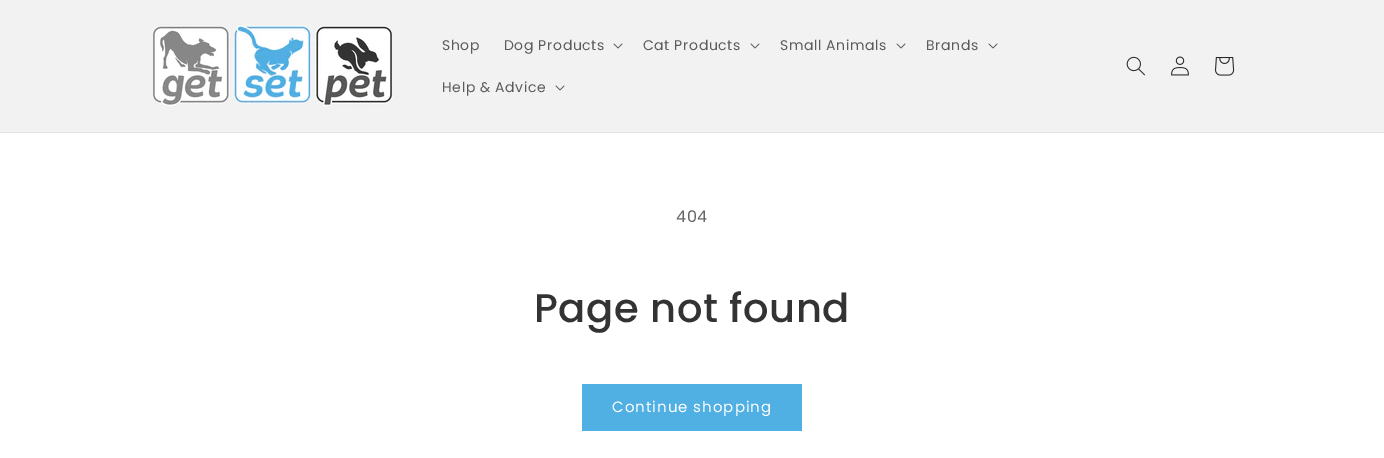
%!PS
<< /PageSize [1384 458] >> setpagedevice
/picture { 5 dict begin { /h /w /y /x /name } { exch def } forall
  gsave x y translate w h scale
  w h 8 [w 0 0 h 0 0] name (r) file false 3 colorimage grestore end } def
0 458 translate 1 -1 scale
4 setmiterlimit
1 setgray
0 0 1384 458 rectfill
0.949 setgray
0 0 1384 132 rectfill
0.886 setgray
0 132 1384 1 rectfill
(img1.rgb) 150 24 244 84 picture
/Poppins-Regular [14 0 0 -14 0 0] selectfont
0.357 setgray
442 50 moveto 0.6 0 (Shop) ashow
504 50 moveto 0.6 0 (Dog Products) ashow
(img2.rgb) 613 43 10 6 picture
643 50 moveto 0.6 0 (Cat Products) ashow
(img2.rgb) 750 43 10 6 picture
780 50 moveto 0.6 0 (Small Animals) ashow
(img2.rgb) 896 43 10 6 picture
926 50 moveto 0.6 0 (Brands) ashow
(img2.rgb) 988 43 10 6 picture
442 92 moveto 0.6 0 (Help & Advice) ashow
(img2.rgb) 555 85 10 6 picture
(img3.rgb) 1126 56 19 20 picture
(img4.rgb) 1171 56 18 20 picture
(img5.rgb) 1215 57 20 19 picture
/Poppins-Regular [16 0 0 -16 0 0] selectfont
0.4 setgray
676 222 moveto 0.6 0 (404) ashow
/Poppins-Medium [40 0 0 -40 0 0] selectfont
0.2 setgray
534 322 moveto 0.6 0 (Page not found) ashow
0.314 0.686 0.89 setrgbcolor
582 384 220 47 rectfill
/Poppins-Regular [15 0 0 -15 0 0] selectfont
1 setgray
612 412 moveto 1 0 (Continue shopping) ashow
showpage
